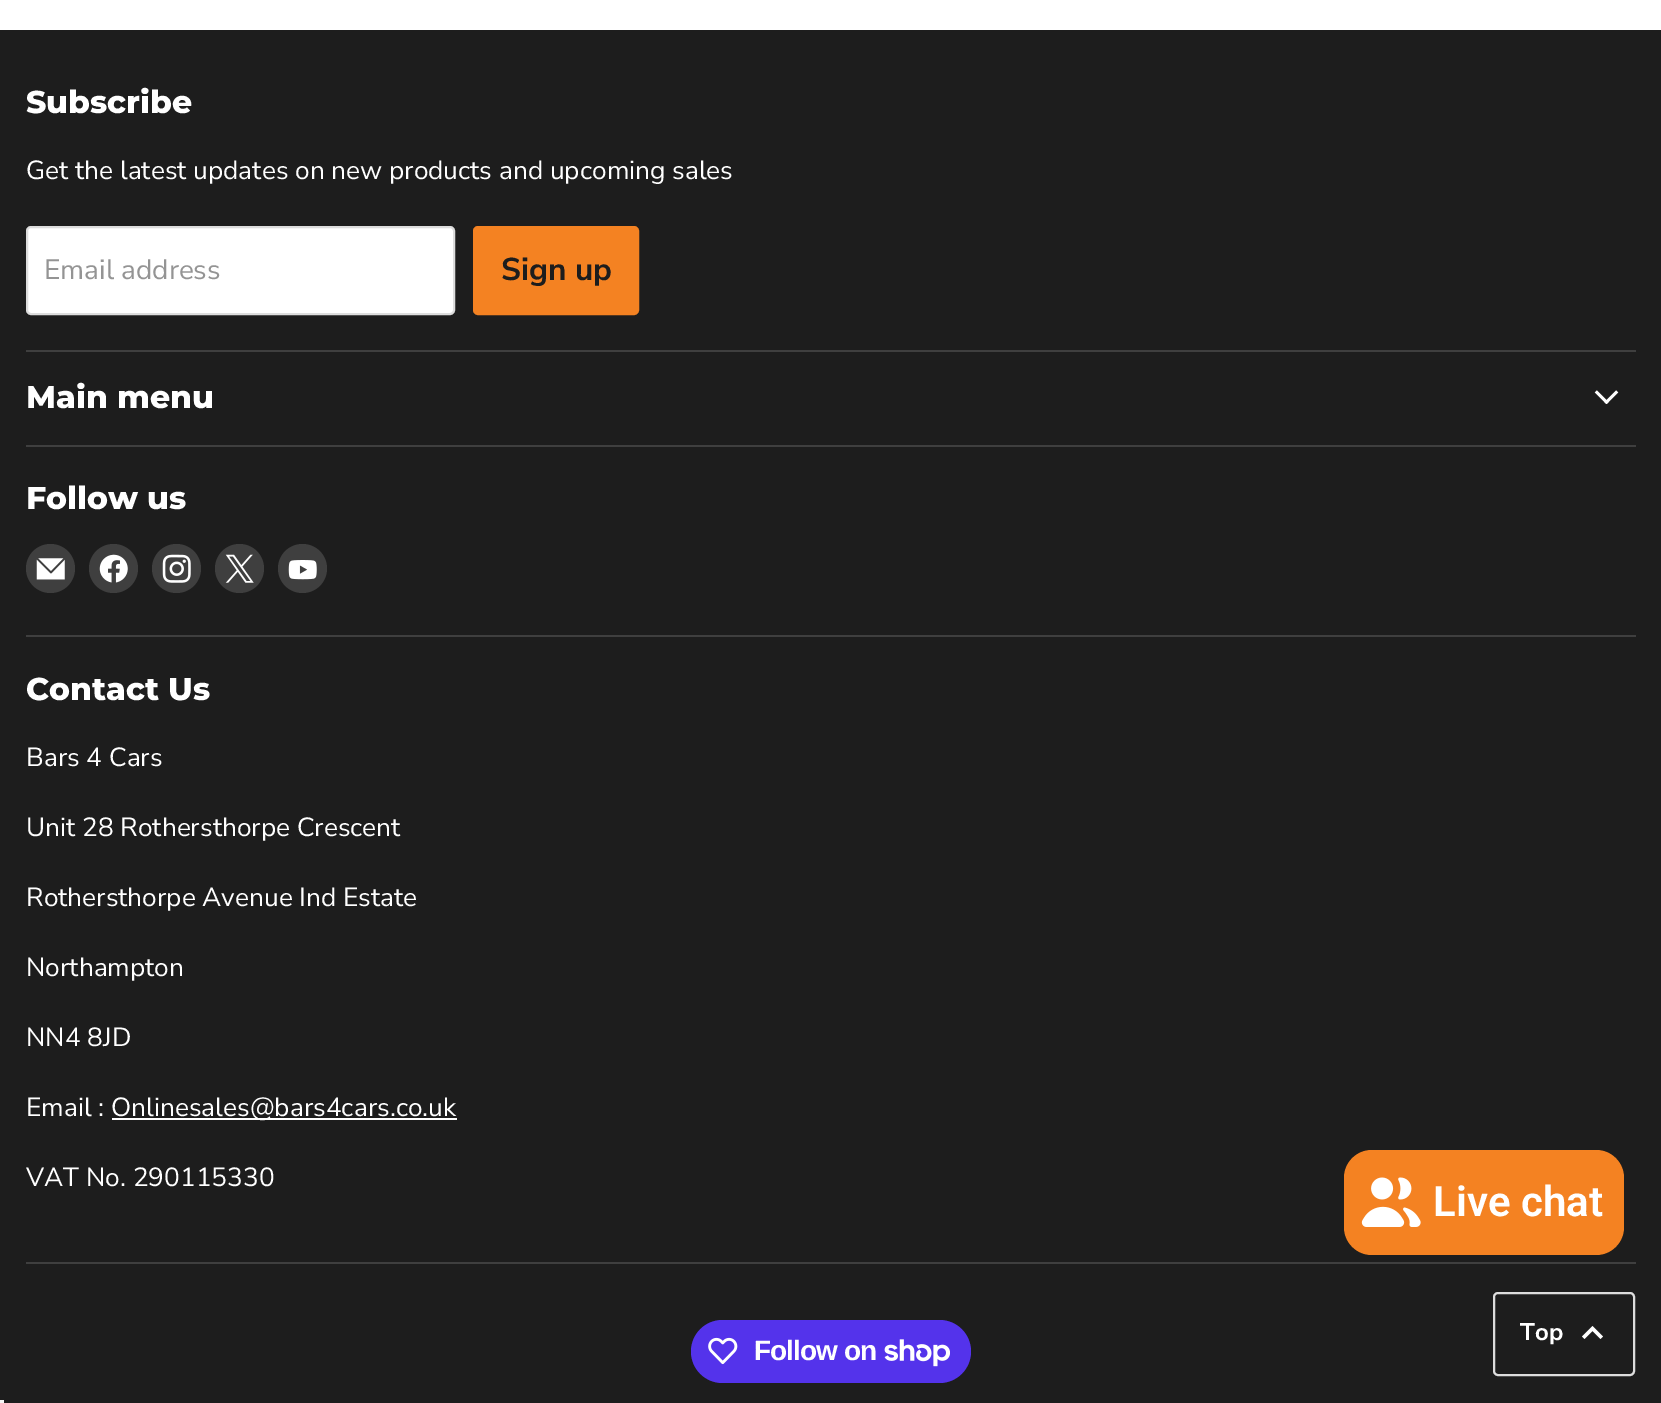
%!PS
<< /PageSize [1661 1403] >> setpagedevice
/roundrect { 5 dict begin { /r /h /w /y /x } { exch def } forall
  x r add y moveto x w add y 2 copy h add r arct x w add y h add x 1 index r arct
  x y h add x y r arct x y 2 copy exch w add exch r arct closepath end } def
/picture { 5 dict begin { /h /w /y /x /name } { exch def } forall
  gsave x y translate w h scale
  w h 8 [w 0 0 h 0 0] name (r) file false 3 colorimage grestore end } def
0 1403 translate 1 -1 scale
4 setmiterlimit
1 setgray
0 0 1661 1403 rectfill
0.114 setgray
0 30 1661 1373 rectfill
0.247 setgray
26 350 1610 2 rectfill
/Montserrat-ExtraBold [31.5 0 0 -31.5 0 0] selectfont
1 setgray
26 113 moveto (Subscribe) show
/NunitoSans-Regular [26.25 0 0 -26.25 0 0] selectfont
26 179 moveto (Get the latest updates on new products and upcoming sales) show
27 227 427 87 4 roundrect gsave fill grestore
0.867 setgray
2 setlinewidth
stroke
/NunitoSans-Regular [28 0 0 -28 0 0] selectfont
0.58 setgray
44 279 moveto (Email address) show
0.957 0.51 0.133 setrgbcolor
474 227 164 87 4 roundrect gsave fill grestore
stroke
/NunitoSans-Bold [31.5 0 0 -31.5 0 0] selectfont
0.114 setgray
501 280 moveto (Sign up) show
0.247 setgray
26 445 1610 2 rectfill
/Montserrat-ExtraBold [31.5 0 0 -31.5 0 0] selectfont
1 setgray
26 408 moveto (Main menu) show
(img1.rgb) 1594 390 25 14 picture
0.247 setgray
26 635 1610 2 rectfill
1 setgray
26 509 moveto (Follow us) show
0.247 setgray
newpath 50.5 568.5 24.5 0 360 arc closepath fill
(img2.rgb) 36 558 29 22 picture
newpath 113.5 568.5 24.5 0 360 arc closepath fill
(img3.rgb) 99 554 29 29 picture
newpath 176.5 568.5 24.5 0 360 arc closepath fill
(img4.rgb) 162 554 29 29 picture
newpath 239.5 568.5 24.5 0 360 arc closepath fill
(img5.rgb) 225 554 29 29 picture
newpath 302.5 568.5 24.5 0 360 arc closepath fill
(img6.rgb) 288 560 29 20 picture
26 1262 1610 2 rectfill
1 setgray
26 700 moveto (Contact Us) show
/NunitoSans-Regular [26.25 0 0 -26.25 0 0] selectfont
26 766 moveto (Bars 4 Cars) show
26 836 moveto (Unit 28 Rothersthorpe Crescent) show
26 906 moveto (Rothersthorpe Avenue Ind Estate) show
26 976 moveto (Northampton) show
26 1046 moveto (NN4 8JD) show
26 1116 moveto (Email :) show
112 1118 345 2 rectfill
111 1116 moveto (Onlinesales@bars4cars.co.uk) show
26 1186 moveto (VAT No. 290115330) show
0.329 0.2 0.922 setrgbcolor
691 1320 280 63 31.5 roundrect fill
(img7.rgb) 708 1337 30 28 picture
/LiberationSans-Bold [28 0 0 -28 0 0] selectfont
1 setgray
754 1360 moveto -0.9 0 (Follow on) ashow
(img8.rgb) 884 1339 66 28 picture
0.957 0.51 0.133 setrgbcolor
1344 1150 280 105 28 roundrect fill
(img9.rgb) 1361 1177 60 50 picture
/Roboto-SemiBold [42 0 0 -42 0 0] selectfont
1 setgray
1433 1216 moveto (Live chat) show
0.867 setgray
1494 1293 140 82 4 roundrect stroke
/NunitoSans-Bold [24 0 0 -24 0 0] selectfont
1 setgray
1520 1340 moveto (Top) show
3.3 setlinewidth
2 setlinecap
newpath 1592.5 1328.5 moveto 1584.5 1336.5 lineto 1592.5 1328.5 moveto 1600.5 1336.5 lineto stroke
0.961 setgray
0 1400 4 3 rectfill
showpage
